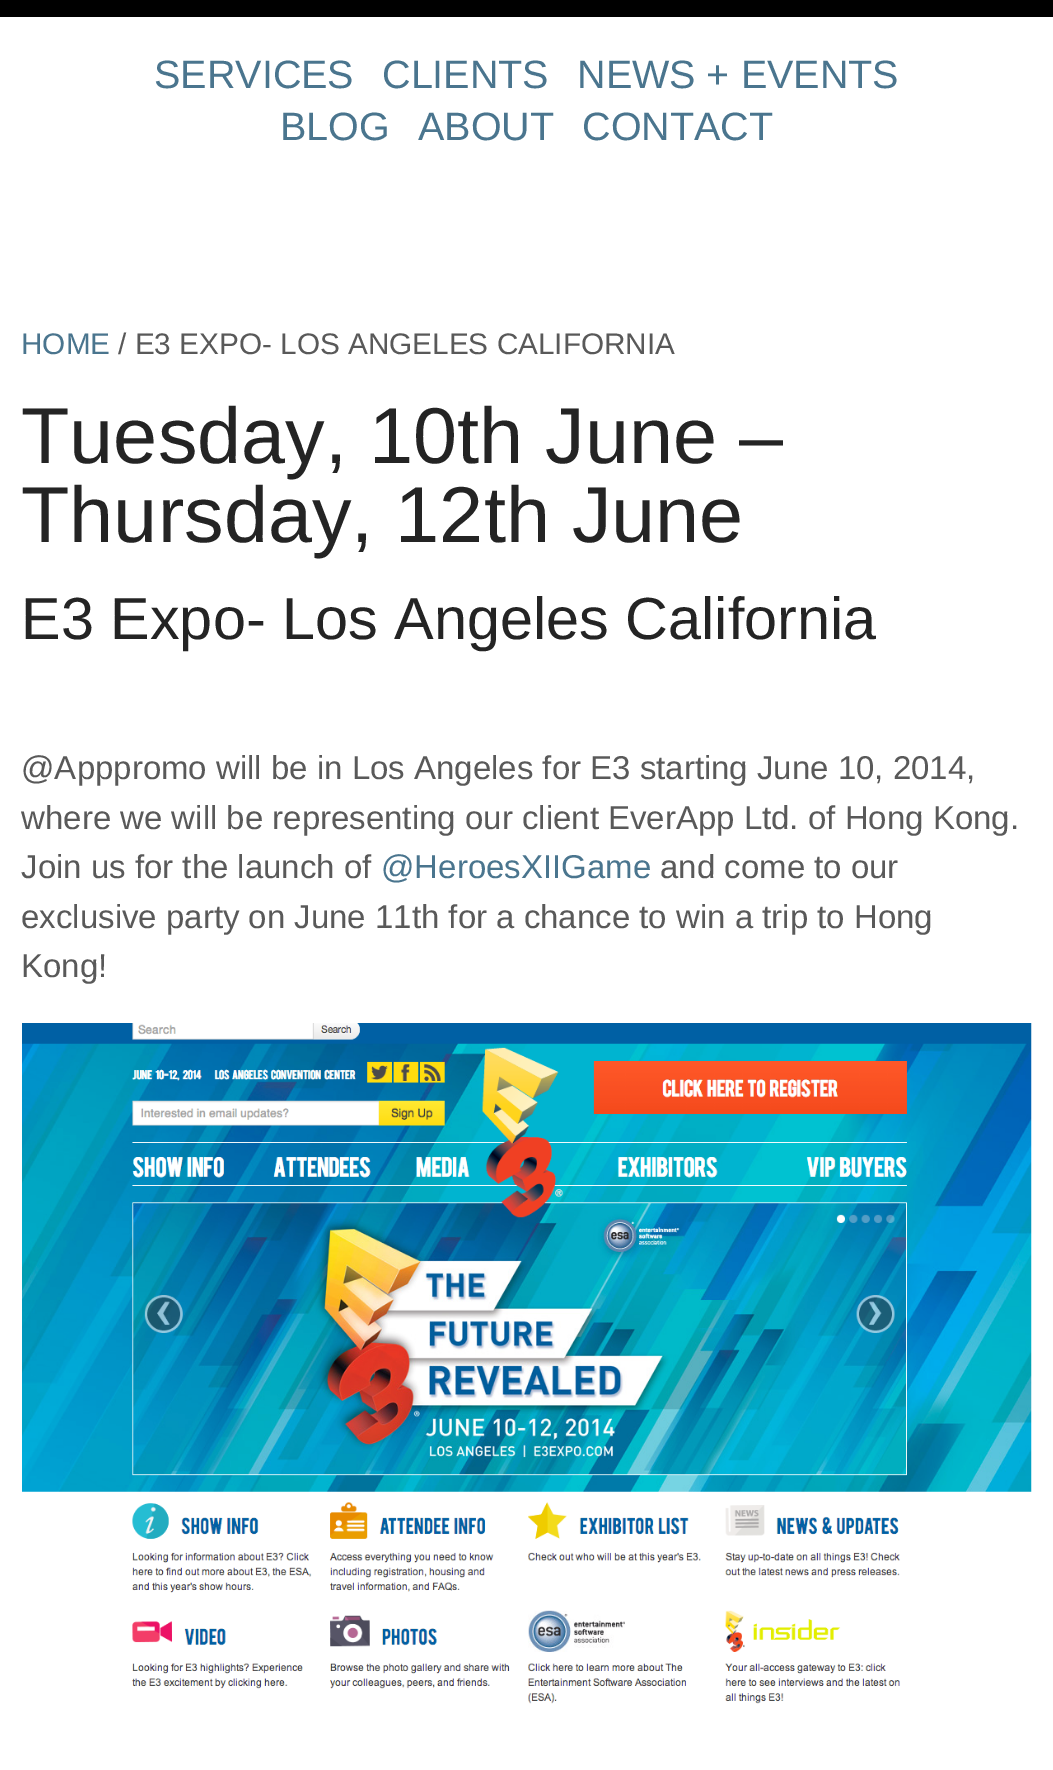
%!PS
<< /PageSize [1053 1770] >> setpagedevice
/picture { 5 dict begin { /h /w /y /x /name } { exch def } forall
  gsave x y translate w h scale
  w h 8 [w 0 0 h 0 0] name (r) file false 3 colorimage grestore end } def
0 1770 translate 1 -1 scale
4 setmiterlimit
1 setgray
0 0 1053 1770 rectfill
0 setgray
0 0 1053 17 rectfill
/LiberationSans-Regular [39.5 0 0 -39.5 0 0] selectfont
0.29 0.459 0.557 setrgbcolor
154 88 moveto (SERVICES) show
382 88 moveto (CLIENTS) show
577 88 moveto (NEWS + EVENTS) show
280 140 moveto (BLOG) show
418 140 moveto (ABOUT) show
582 140 moveto (CONTACT) show
/LiberationSans-Regular [29.75 0 0 -29.75 0 0] selectfont
21 354 moveto (HOME) show
0.349 setgray
118 354 moveto (/ E3 EXPO- LOS ANGELES CALIFORNIA) show
/LiberationSans-Regular [79.25 0 0 -79.25 0 0] selectfont
0.141 setgray
21 463 moveto (Tuesday, 10th June –) show
21 542 moveto (Thursday, 12th June) show
/LiberationSans-Regular [59.4 0 0 -59.4 0 0] selectfont
21 639 moveto (E3 Expo- Los Angeles California) show
/LiberationSans-Regular [33 0 0 -33 0 0] selectfont
0.349 setgray
21 779 moveto (@Apppromo will be in Los Angeles for E3 starting June 10, 2014,) show
21 829 moveto (where we will be representing our client EverApp Ltd. of Hong Kong.) show
21 878 moveto (Join us for the launch of) show
0.29 0.459 0.557 setrgbcolor
381 878 moveto (@HeroesXIIGame) show
0.349 setgray
660 878 moveto (and come to our) show
21 928 moveto (exclusive party on June 11th for a chance to win a trip to Hong) show
21 977 moveto (Kong!) show
(img1.rgb) 22 1023 1010 681 picture
showpage
